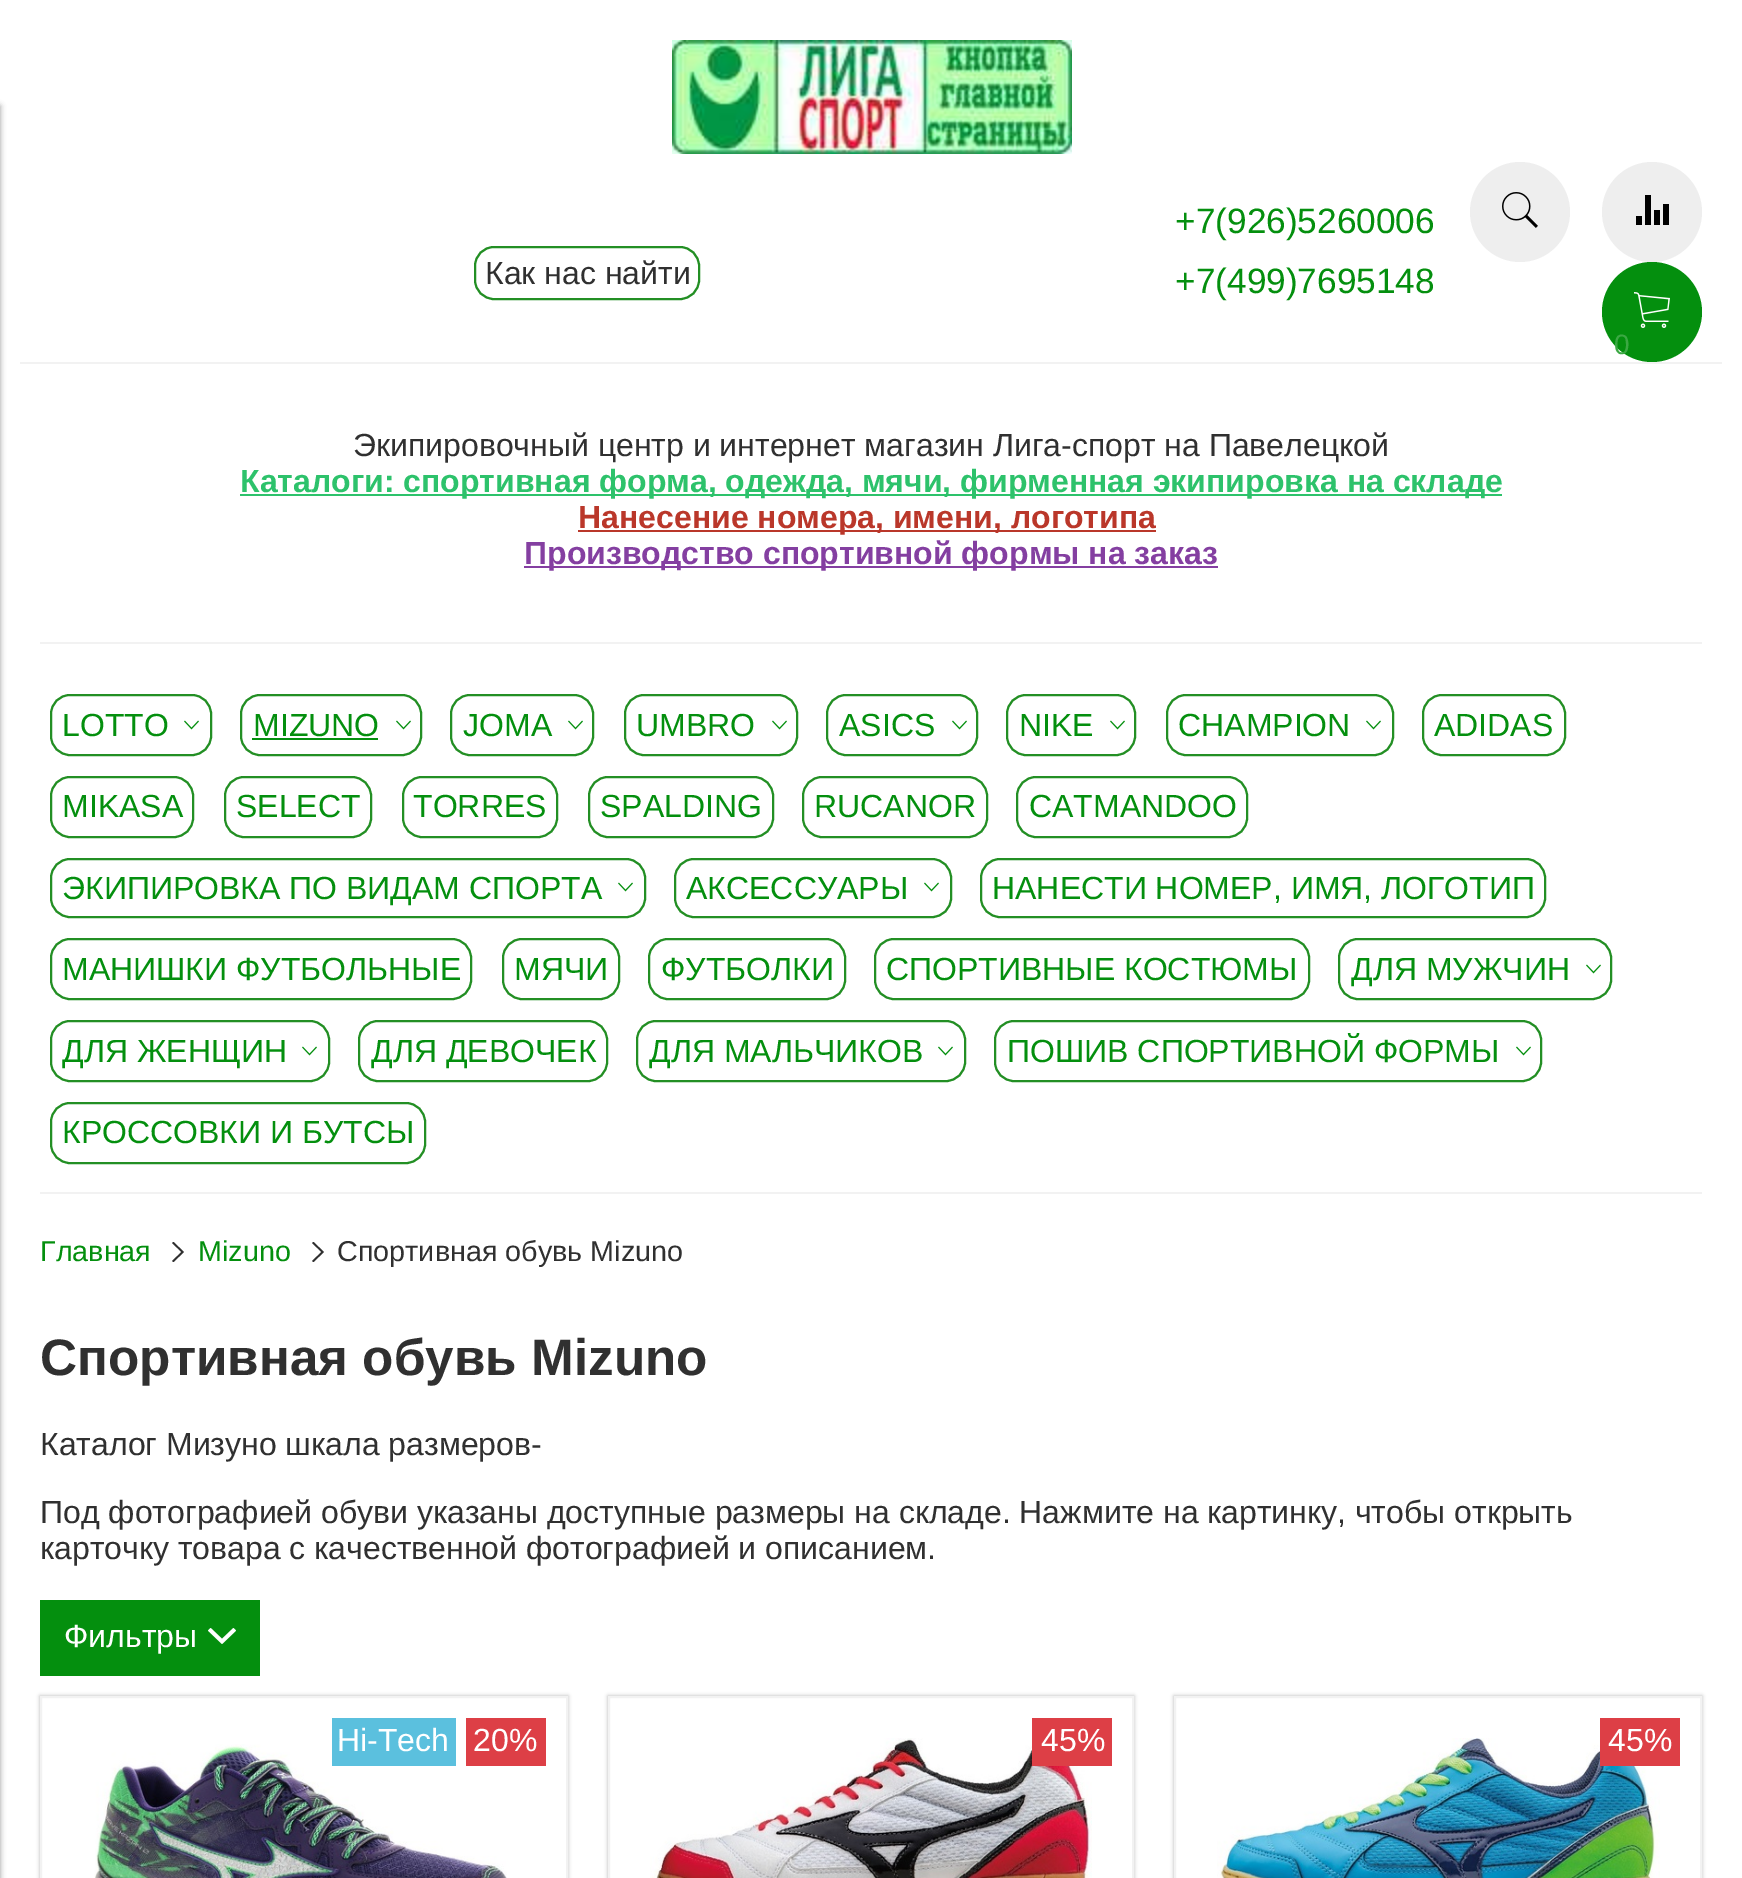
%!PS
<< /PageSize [1742 1878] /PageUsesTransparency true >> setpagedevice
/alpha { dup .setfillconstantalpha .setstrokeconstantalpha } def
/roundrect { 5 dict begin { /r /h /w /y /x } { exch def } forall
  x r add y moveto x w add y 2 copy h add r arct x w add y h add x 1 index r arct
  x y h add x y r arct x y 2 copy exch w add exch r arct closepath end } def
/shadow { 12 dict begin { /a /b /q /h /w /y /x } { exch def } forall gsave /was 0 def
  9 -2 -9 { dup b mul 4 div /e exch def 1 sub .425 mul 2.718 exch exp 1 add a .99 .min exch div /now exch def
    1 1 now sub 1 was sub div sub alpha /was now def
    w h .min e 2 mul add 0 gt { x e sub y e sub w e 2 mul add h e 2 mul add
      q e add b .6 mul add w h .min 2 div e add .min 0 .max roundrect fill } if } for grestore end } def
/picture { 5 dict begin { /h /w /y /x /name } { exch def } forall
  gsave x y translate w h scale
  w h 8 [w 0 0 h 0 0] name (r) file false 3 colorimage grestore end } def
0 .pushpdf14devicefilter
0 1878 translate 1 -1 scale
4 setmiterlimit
1 setgray
0 0 1742 1878 rectfill
0 setgray
-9 106 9 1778 0 3 0.4 shadow
(img1.rgb) 672 40 400 114 picture
0.137 0.561 0.141 setrgbcolor
2 setlinewidth
475 247 224 52 19 roundrect stroke
/LiberationSans-Regular [32 0 0 -32 0 0] selectfont
0.188 setgray
485 284 moveto (Как нас найти) show
/LiberationSans-Regular [35.25 0 0 -35.25 0 0] selectfont
0.016 0.561 0.055 setrgbcolor
1175 233 moveto (+7\(926\)5260006) show
1175 293 moveto (+7\(499\)7695148) show
0.933 setgray
newpath 1520 212 50 0 360 arc closepath fill
(img2.rgb) 1502 192 36 36 picture
newpath 1652 212 50 0 360 arc closepath fill
(img3.rgb) 1636 195 33 30 picture
0.016 0.561 0.055 setrgbcolor
newpath 1652 312 50 0 360 arc closepath fill
(img4.rgb) 1634 292 36 36 picture
/LiberationSans-Regular [28 0 0 -28 0 0] selectfont
0.231 0.659 0.263 setrgbcolor
1614 354 moveto (0) show
0.949 setgray
20 362 1702 2 rectfill
/LiberationSans-Regular [32 0 0 -32 0 0] selectfont
0.188 setgray
353 456 moveto (Экипировочный центр и интернет магазин Лига-спорт на Павелецкой) show
0.176 0.761 0.42 setrgbcolor
240 494 1262 2 rectfill
/LiberationSans-Bold [32 0 0 -32 0 0] selectfont
240 492 moveto (Каталоги: спортивная форма, одежда, мячи, фирменная экипировка на складе) show
0.729 0.216 0.165 setrgbcolor
578 530 578 2 rectfill
578 528 moveto (Нанесение номера, имени, логотипа) show
0.518 0.247 0.631 setrgbcolor
524 566 694 2 rectfill
524 564 moveto (Производство спортивной формы на заказ) show
0.949 setgray
40 642 1662 2 rectfill
0.137 0.561 0.141 setrgbcolor
51 695 160 60 19 roundrect stroke
/LiberationSans-Regular [32 0 0 -32 0 0] selectfont
0.016 0.561 0.055 setrgbcolor
62 736 moveto (LOTTO) show
(img5.rgb) 184 720 15 10 picture
0.137 0.561 0.141 setrgbcolor
241 695 180 60 19 roundrect stroke
0.016 0.561 0.055 setrgbcolor
253 736 moveto (MIZUNO) show
252 738 126 2 rectfill
(img5.rgb) 396 720 15 10 picture
0.137 0.561 0.141 setrgbcolor
451 695 142 60 19 roundrect stroke
0.016 0.561 0.055 setrgbcolor
463 736 moveto (JOMA) show
(img5.rgb) 568 720 15 10 picture
0.137 0.561 0.141 setrgbcolor
625 695 172 60 19 roundrect stroke
0.016 0.561 0.055 setrgbcolor
636 736 moveto (UMBRO) show
(img5.rgb) 772 720 15 10 picture
0.137 0.561 0.141 setrgbcolor
827 695 150 60 19 roundrect stroke
0.016 0.561 0.055 setrgbcolor
839 736 moveto (ASICS) show
(img5.rgb) 952 720 15 10 picture
0.137 0.561 0.141 setrgbcolor
1007 695 128 60 19 roundrect stroke
0.016 0.561 0.055 setrgbcolor
1019 736 moveto (NIKE) show
(img5.rgb) 1110 720 15 10 picture
0.137 0.561 0.141 setrgbcolor
1167 695 226 60 19 roundrect stroke
0.016 0.561 0.055 setrgbcolor
1178 736 moveto (CHAMPION) show
(img5.rgb) 1366 720 15 10 picture
0.137 0.561 0.141 setrgbcolor
1423 695 142 60 19 roundrect stroke
0.016 0.561 0.055 setrgbcolor
1434 736 moveto (ADIDAS) show
0.137 0.561 0.141 setrgbcolor
51 777 142 60 19 roundrect stroke
0.016 0.561 0.055 setrgbcolor
62 817 moveto (MIKASA) show
0.137 0.561 0.141 setrgbcolor
225 777 146 60 19 roundrect stroke
0.016 0.561 0.055 setrgbcolor
236 817 moveto (SELECT) show
0.137 0.561 0.141 setrgbcolor
403 777 154 60 19 roundrect stroke
0.016 0.561 0.055 setrgbcolor
413 817 moveto (TORRES) show
0.137 0.561 0.141 setrgbcolor
589 777 184 60 19 roundrect stroke
0.016 0.561 0.055 setrgbcolor
600 817 moveto (SPALDING) show
0.137 0.561 0.141 setrgbcolor
803 777 184 60 19 roundrect stroke
0.016 0.561 0.055 setrgbcolor
814 817 moveto (RUCANOR) show
0.137 0.561 0.141 setrgbcolor
1017 777 230 60 19 roundrect stroke
0.016 0.561 0.055 setrgbcolor
1029 817 moveto (CATMANDOO) show
0.137 0.561 0.141 setrgbcolor
51 859 594 58 19 roundrect stroke
0.016 0.561 0.055 setrgbcolor
62 899 moveto (ЭКИПИРОВКА ПО ВИДАМ СПОРТА) show
(img5.rgb) 618 882 15 10 picture
0.137 0.561 0.141 setrgbcolor
675 859 276 58 19 roundrect stroke
0.016 0.561 0.055 setrgbcolor
686 899 moveto (АКСЕССУАРЫ) show
(img5.rgb) 924 882 15 10 picture
0.137 0.561 0.141 setrgbcolor
981 859 564 58 19 roundrect stroke
0.016 0.561 0.055 setrgbcolor
992 899 moveto (НАНЕСТИ НОМЕР, ИМЯ, ЛОГОТИП) show
0.137 0.561 0.141 setrgbcolor
51 939 420 60 19 roundrect stroke
0.016 0.561 0.055 setrgbcolor
62 980 moveto (МАНИШКИ ФУТБОЛЬНЫЕ) show
0.137 0.561 0.141 setrgbcolor
503 939 116 60 19 roundrect stroke
0.016 0.561 0.055 setrgbcolor
514 980 moveto (МЯЧИ) show
0.137 0.561 0.141 setrgbcolor
649 939 196 60 19 roundrect stroke
0.016 0.561 0.055 setrgbcolor
661 980 moveto (ФУТБОЛКИ) show
0.137 0.561 0.141 setrgbcolor
875 939 434 60 19 roundrect stroke
0.016 0.561 0.055 setrgbcolor
886 980 moveto (СПОРТИВНЫЕ КОСТЮМЫ) show
0.137 0.561 0.141 setrgbcolor
1339 939 272 60 19 roundrect stroke
0.016 0.561 0.055 setrgbcolor
1351 980 moveto (ДЛЯ МУЖЧИН) show
(img5.rgb) 1586 964 15 10 picture
0.137 0.561 0.141 setrgbcolor
51 1021 278 60 19 roundrect stroke
0.016 0.561 0.055 setrgbcolor
62 1062 moveto (ДЛЯ ЖЕНЩИН) show
(img5.rgb) 302 1046 15 10 picture
0.137 0.561 0.141 setrgbcolor
359 1021 248 60 19 roundrect stroke
0.016 0.561 0.055 setrgbcolor
371 1062 moveto (ДЛЯ ДЕВОЧЕК) show
0.137 0.561 0.141 setrgbcolor
637 1021 328 60 19 roundrect stroke
0.016 0.561 0.055 setrgbcolor
649 1062 moveto (ДЛЯ МАЛЬЧИКОВ) show
(img5.rgb) 938 1046 15 10 picture
0.137 0.561 0.141 setrgbcolor
995 1021 546 60 19 roundrect stroke
0.016 0.561 0.055 setrgbcolor
1007 1062 moveto (ПОШИВ СПОРТИВНОЙ ФОРМЫ) show
(img5.rgb) 1516 1046 15 10 picture
0.137 0.561 0.141 setrgbcolor
51 1103 374 60 19 roundrect stroke
0.016 0.561 0.055 setrgbcolor
62 1143 moveto (КРОССОВКИ И БУТСЫ) show
0.949 setgray
40 1192 1662 2 rectfill
/LiberationSans-Regular [28.75 0 0 -28.75 0 0] selectfont
0.016 0.561 0.055 setrgbcolor
40 1261 moveto (Главная) show
0.188 setgray
newpath 172 1243 moveto 173.5 1242 lineto 184 1252 lineto 173.5 1262 lineto 172 1261 lineto 181.5 1252 lineto closepath fill
0.016 0.561 0.055 setrgbcolor
198 1261 moveto (Mizuno) show
0.188 setgray
newpath 312 1243 moveto 313.5 1242 lineto 324 1252 lineto 313.5 1262 lineto 312 1261 lineto 321.5 1252 lineto closepath fill
337 1261 moveto (Спортивная обувь Mizuno) show
/LiberationSans-Bold [51.25 0 0 -51.25 0 0] selectfont
40 1375 moveto (Спортивная обувь Mizuno) show
/LiberationSans-Regular [32 0 0 -32 0 0] selectfont
40 1455 moveto (Каталог Мизуно шкала размеров-) show
40 1523 moveto (Под фотографией обуви указаны доступные размеры на складе. Нажмите на картинку, чтобы открыть) show
40 1559 moveto (карточку товара с качественной фотографией и описанием.) show
0.016 0.561 0.055 setrgbcolor
40 1600 220 76 rectfill
1 setgray
64 1647 moveto (Фильтры) show
(img6.rgb) 208 1628 28 16 picture
gsave
newpath 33 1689 moveto 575 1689 lineto 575 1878 lineto 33 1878 lineto closepath 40 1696 moveto 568 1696 lineto 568 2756 lineto 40 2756 lineto closepath eoclip newpath
0 setgray
40 1696 528 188 0 2 0.3 shadow
grestore
0.949 setgray
41 1697 526 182 rectstroke
(img7.rgb) 94 1744 413 134 picture
0.357 0.753 0.871 setrgbcolor
332 1718 124 48 rectfill
1 setgray
337 1751 moveto (Hi-Tech) show
0.867 0.247 0.275 setrgbcolor
466 1718 80 48 rectfill
1 setgray
473 1751 moveto (20%) show
gsave
newpath 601 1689 moveto 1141 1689 lineto 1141 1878 lineto 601 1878 lineto closepath 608 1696 moveto 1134 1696 lineto 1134 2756 lineto 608 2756 lineto closepath eoclip newpath
0 setgray
608 1696 526 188 0 2 0.3 shadow
grestore
0.949 setgray
609 1697 524 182 rectstroke
(img8.rgb) 650 1738 442 140 picture
0.867 0.247 0.275 setrgbcolor
1032 1718 80 48 rectfill
1 setgray
1041 1751 moveto (45%) show
gsave
newpath 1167 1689 moveto 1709 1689 lineto 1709 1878 lineto 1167 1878 lineto closepath 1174 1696 moveto 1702 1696 lineto 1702 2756 lineto 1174 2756 lineto closepath eoclip newpath
0 setgray
1174 1696 528 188 0 2 0.3 shadow
grestore
0.949 setgray
1175 1697 526 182 rectstroke
(img9.rgb) 1217 1738 443 140 picture
0.867 0.247 0.275 setrgbcolor
1600 1718 80 48 rectfill
1 setgray
1608 1751 moveto (45%) show
.poppdf14devicefilter showpage
